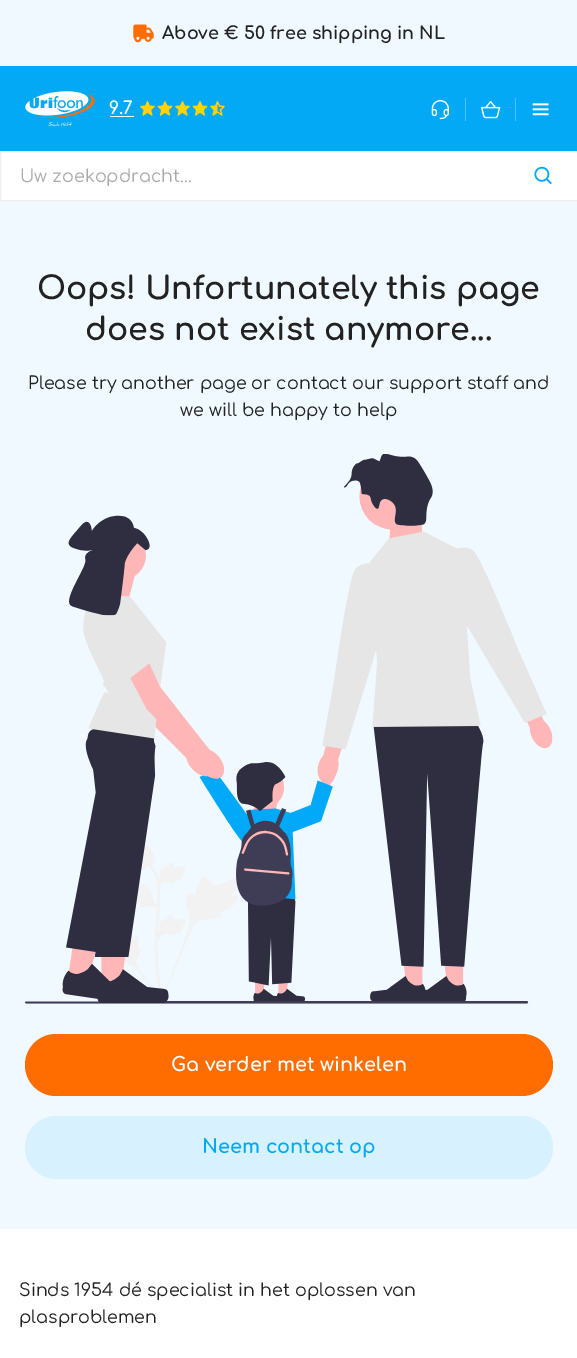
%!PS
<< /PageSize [577 1358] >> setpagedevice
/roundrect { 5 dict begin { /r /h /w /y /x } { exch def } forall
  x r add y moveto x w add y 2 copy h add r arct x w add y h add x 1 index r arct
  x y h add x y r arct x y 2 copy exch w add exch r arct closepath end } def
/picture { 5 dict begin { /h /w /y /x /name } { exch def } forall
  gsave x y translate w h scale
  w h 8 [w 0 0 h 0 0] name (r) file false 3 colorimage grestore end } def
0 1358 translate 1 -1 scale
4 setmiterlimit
0.937 0.976 1 setrgbcolor
0 0 577 1358 rectfill
(img1.rgb) 133 24 21 19 picture
/Comfortaa-Bold [17.5 0 0 -17.5 0 0] selectfont
0.133 setgray
162 39 moveto (Above € 50 free shipping in NL) show
0.012 0.663 0.957 setrgbcolor
0 66 577 85 rectfill
(img2.rgb) 25 91 70 35 picture
1 setgray
109 114 moveto (9.7) show
110 116 24 1 rectfill
(img3.rgb) 140 101 15 15 picture
(img4.rgb) 157 101 16 15 picture
(img3.rgb) 175 101 15 15 picture
(img4.rgb) 192 101 16 15 picture
(img5.rgb) 210 101 15 15 picture
(img6.rgb) 431 100 18 20 picture
0.31 0.765 0.969 setrgbcolor
465 98 1 23 rectfill
(img7.rgb) 481 101 20 18 picture
515 98 1 23 rectfill
(img8.rgb) 532 103 17 13 picture
1 setgray
newpath 0.5 151.5 moveto 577.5 151.5 lineto 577.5 200.5 lineto 0.5 200.5 lineto closepath gsave fill grestore
0.933 setgray
stroke
/Comfortaa-Regular [17.5 0 0 -17.5 0 0] selectfont
0.667 setgray
20 182 moveto (Uw zoekopdracht...) show
(img9.rgb) 534 166 18 19 picture
/Comfortaa-Bold [31.5 0 0 -31.5 0 0] selectfont
0.133 setgray
37 299 moveto (Oops! Unfortunately this page) show
85 340 moveto (does not exist anymore...) show
/Comfortaa-Regular [17.5 0 0 -17.5 0 0] selectfont
28 389 moveto (Please try another page or contact our support staff and) show
180 416 moveto (we will be happy to help) show
(img10.rgb) 25 454 528 550 picture
1 0.427 0 setrgbcolor
25 1034 528 62 31 roundrect fill
/Comfortaa-Bold [19.25 0 0 -19.25 0 0] selectfont
1 setgray
171 1071 moveto (Ga verder met winkelen) show
0.843 0.945 0.996 setrgbcolor
25 1116 528 63 31.5 roundrect fill
0.012 0.663 0.957 setrgbcolor
202 1153 moveto (Neem contact op) show
1 setgray
0 1229 577 129 rectfill
/Comfortaa-Regular [17.5 0 0 -17.5 0 0] selectfont
0.133 setgray
19 1296 moveto (Sinds 1954 dé specialist in het oplossen van) show
19 1323 moveto (plasproblemen) show
showpage
